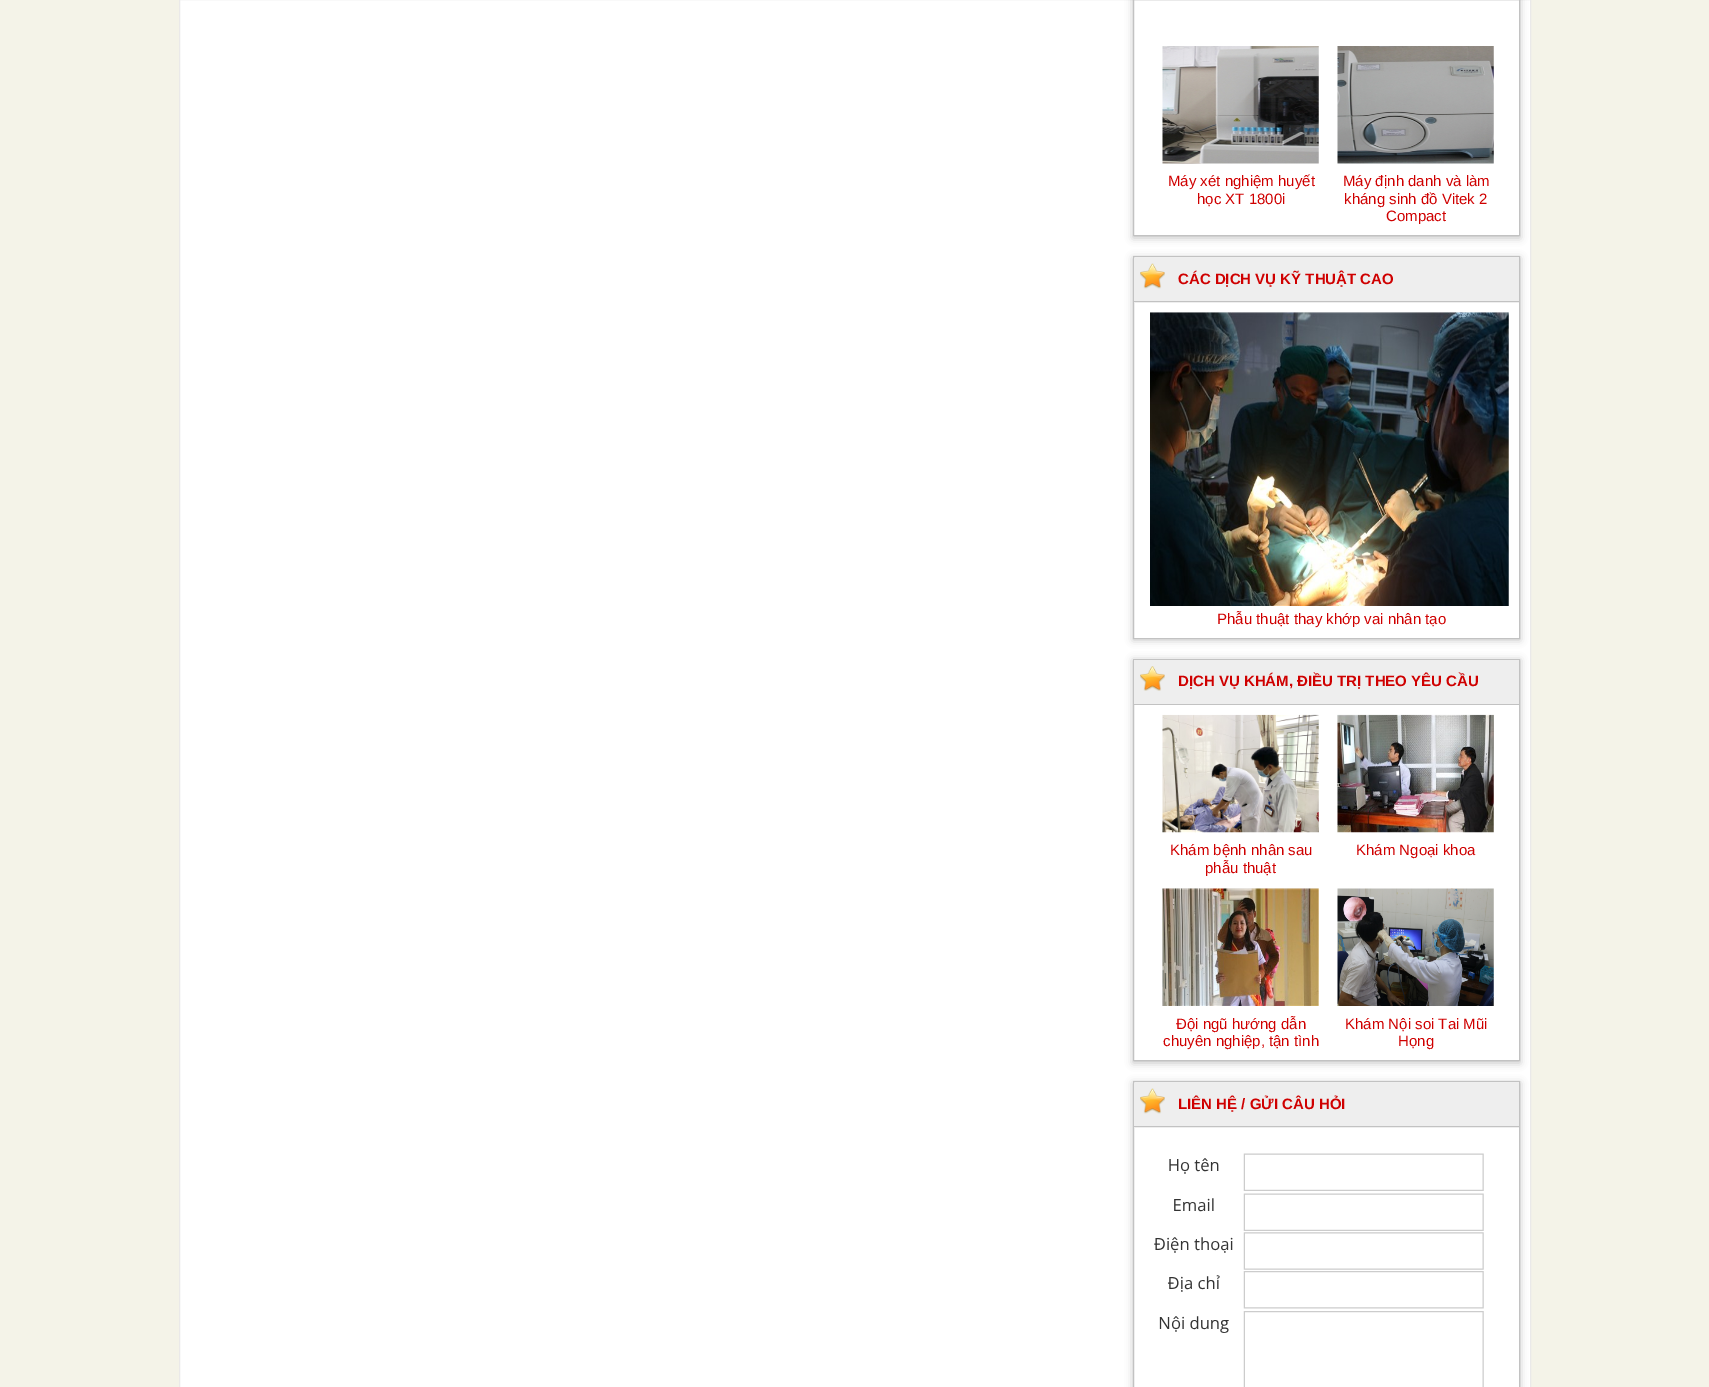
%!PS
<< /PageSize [1709 1387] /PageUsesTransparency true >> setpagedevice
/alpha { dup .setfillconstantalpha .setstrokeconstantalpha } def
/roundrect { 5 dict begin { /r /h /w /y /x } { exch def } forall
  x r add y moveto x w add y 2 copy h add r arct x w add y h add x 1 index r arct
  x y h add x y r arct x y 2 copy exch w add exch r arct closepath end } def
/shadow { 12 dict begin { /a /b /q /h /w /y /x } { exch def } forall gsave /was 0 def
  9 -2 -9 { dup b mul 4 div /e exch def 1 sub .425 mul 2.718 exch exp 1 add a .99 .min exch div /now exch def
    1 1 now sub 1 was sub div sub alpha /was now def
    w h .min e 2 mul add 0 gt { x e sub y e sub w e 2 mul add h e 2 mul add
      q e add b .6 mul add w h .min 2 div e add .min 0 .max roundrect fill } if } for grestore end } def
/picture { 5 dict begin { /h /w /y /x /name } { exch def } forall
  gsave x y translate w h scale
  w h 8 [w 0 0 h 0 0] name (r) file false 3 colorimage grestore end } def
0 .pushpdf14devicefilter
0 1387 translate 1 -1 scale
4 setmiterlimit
0.957 0.953 0.91 setrgbcolor
0 0 1709 1387 rectfill
1 setgray
newpath 179.5 -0.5 moveto 1530.5 -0.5 lineto 1530.5 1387.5 lineto 179.5 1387.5 lineto closepath gsave fill grestore
0.918 0.914 0.914 setrgbcolor
stroke
gsave
newpath 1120 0 moveto 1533 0 lineto 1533 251 lineto 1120 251 lineto closepath 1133 -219 moveto 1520 -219 lineto 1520 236 lineto 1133 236 lineto closepath eoclip newpath
0.196 setgray
1133 -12 387 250 0 4 0.3 shadow
grestore
0.761 setgray
1133.5 -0.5 386 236 rectstroke
(img1.rgb) 1162 46 157 118 picture
/LiberationSans-Regular [15 0 0 -15 0 0] selectfont
0.812 0 0 setrgbcolor
1168 186 moveto (Máy xét nghiệm huyết) show
1197 204 moveto (học XT 1800i) show
(img2.rgb) 1337 46 157 118 picture
1343 186 moveto (Máy định danh và làm) show
1344 204 moveto (kháng sinh đồ Vitek 2) show
1386 221 moveto (Compact) show
gsave
newpath 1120 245 moveto 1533 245 lineto 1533 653 lineto 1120 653 lineto closepath 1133 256 moveto 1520 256 lineto 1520 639 lineto 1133 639 lineto closepath eoclip newpath
0.196 setgray
1133 258 387 382 0 4 0.3 shadow
grestore
0.761 setgray
1133.5 256.5 386 382 rectstroke
0.933 setgray
1134 258 385 45 rectfill
0.761 setgray
1134 301 385 1 rectfill
(img3.rgb) 1140 263 25 26 picture
/LiberationSans-Bold [15 0 0 -15 0 0] selectfont
0.812 0 0 setrgbcolor
1178 284 moveto (CÁC DỊCH VỤ KỸ THUẬT CAO) show
(img4.rgb) 1150 312 359 294 picture
/LiberationSans-Regular [15 0 0 -15 0 0] selectfont
1217 624 moveto (Phẫu thuật thay khớp vai nhân tạo) show
gsave
newpath 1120 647 moveto 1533 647 lineto 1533 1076 lineto 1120 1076 lineto closepath 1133 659 moveto 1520 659 lineto 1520 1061 lineto 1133 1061 lineto closepath eoclip newpath
0.196 setgray
1133 660 387 403 0 4 0.3 shadow
grestore
0.761 setgray
1133.5 659.5 386 401 rectstroke
0.933 setgray
1134 660 385 44 rectfill
0.761 setgray
1134 704 385 1 rectfill
(img5.rgb) 1140 666 25 25 picture
/LiberationSans-Bold [15 0 0 -15 0 0] selectfont
0.812 0 0 setrgbcolor
1178 686 moveto (DỊCH VỤ KHÁM, ĐIỀU TRỊ THEO YÊU CẦU) show
(img6.rgb) 1162 714 157 119 picture
/LiberationSans-Regular [15 0 0 -15 0 0] selectfont
1170 855 moveto (Khám bệnh nhân sau) show
1205 873 moveto (phẫu thuật) show
(img7.rgb) 1337 714 157 119 picture
1356 855 moveto (Khám Ngoại khoa) show
(img8.rgb) 1162 888 157 118 picture
1176 1029 moveto (Đội ngũ hướng dẫn) show
1163 1046 moveto (chuyên nghiệp, tận tình) show
(img9.rgb) 1337 888 157 118 picture
1345 1029 moveto (Khám Nội soi Tai Mũi) show
1398 1046 moveto (Họng) show
gsave
newpath 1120 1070 moveto 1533 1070 lineto 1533 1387 lineto 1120 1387 lineto closepath 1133 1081 moveto 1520 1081 lineto 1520 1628 lineto 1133 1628 lineto closepath eoclip newpath
0.196 setgray
1133 1083 387 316 0 4 0.3 shadow
grestore
0.761 setgray
1133.5 1081.5 386 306 rectstroke
0.933 setgray
1134 1083 385 45 rectfill
0.761 setgray
1134 1126 385 1 rectfill
(img3.rgb) 1140 1088 25 26 picture
/LiberationSans-Bold [15 0 0 -15 0 0] selectfont
0.812 0 0 setrgbcolor
1178 1109 moveto (LIÊN HỆ / GỬI CÂU HỎI) show
(img10.rgb) 1154 1153 330 234 picture
.poppdf14devicefilter showpage
